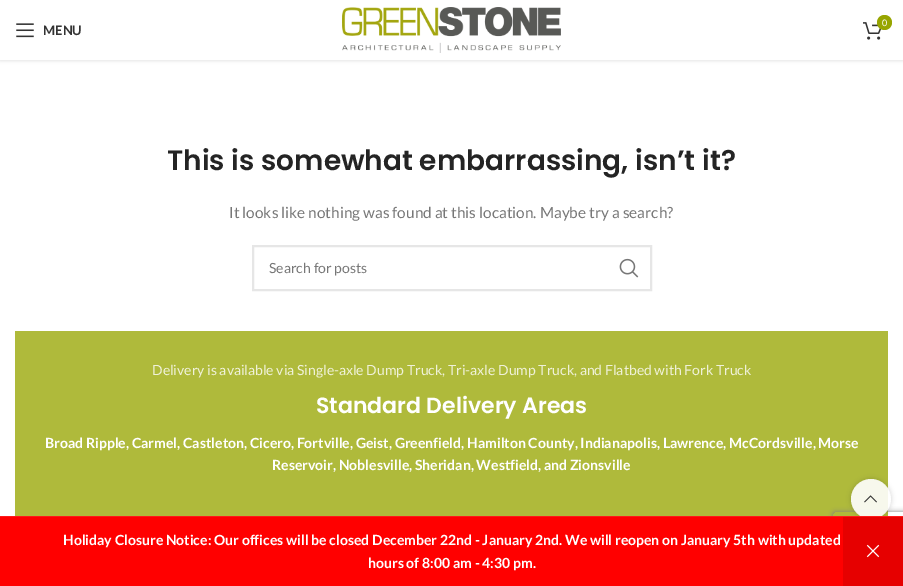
%!PS
<< /PageSize [903 586] /PageUsesTransparency true >> setpagedevice
/alpha { dup .setfillconstantalpha .setstrokeconstantalpha } def
/roundrect { 5 dict begin { /r /h /w /y /x } { exch def } forall
  x r add y moveto x w add y 2 copy h add r arct x w add y h add x 1 index r arct
  x y h add x y r arct x y 2 copy exch w add exch r arct closepath end } def
/shadow { 12 dict begin { /a /b /q /h /w /y /x } { exch def } forall gsave /was 0 def
  9 -2 -9 { dup b mul 4 div /e exch def 1 sub .425 mul 2.718 exch exp 1 add a .99 .min exch div /now exch def
    1 1 now sub 1 was sub div sub alpha /was now def
    w h .min e 2 mul add 0 gt { x e sub y e sub w e 2 mul add h e 2 mul add
      q e add b .6 mul add w h .min 2 div e add .min 0 .max roundrect fill } if } for grestore end } def
/picture { 5 dict begin { /h /w /y /x /name } { exch def } forall
  gsave x y translate w h scale
  w h 8 [w 0 0 h 0 0] name (r) file false 3 colorimage grestore end } def
0 .pushpdf14devicefilter
0 586 translate 1 -1 scale
4 setmiterlimit
1 setgray
0 0 903 586 rectfill
0 setgray
0 1 903 60 0 1.5 0.1 shadow
1 setgray
0 0 903 60 rectfill
(img1.rgb) 342 7 219 46 picture
(img2.rgb) 863 22 19 18 picture
0.592 0.647 0 setrgbcolor
newpath 884.5 22.5 7.5 0 360 arc closepath fill
/Lato-Regular [9 0 0 -9 0 0] selectfont
1 setgray
882 26 moveto (0) show
(img3.rgb) 16 23 18 15 picture
/Lato-Bold [13 0 0 -13 0 0] selectfont
0.2 setgray
43 35 moveto (MENU) show
/Poppins-SemiBold [28 0 0 -28 0 0] selectfont
0.141 setgray
167 170 moveto (This is somewhat embarrassing, isn’t it?) show
/Lato-Regular [15.4 0 0 -15.4 0 0] selectfont
0.467 setgray
229 218 moveto (It looks like nothing was found at this location. Maybe try a search?) show
0.902 setgray
2 setlinewidth
253 246 398 44 rectstroke
/Lato-Regular [14 0 0 -14 0 0] selectfont
0.467 setgray
269 273 moveto (Search for posts) show
(img4.rgb) 619 258 20 20 picture
0.686 0.729 0.231 setrgbcolor
15 331 873 185 rectfill
0.937 0.945 0.847 setrgbcolor
152 375 moveto (Delivery is available via Single-axle Dump Truck, Tri-axle Dump Truck, and Flatbed with Fork Truck) show
/Poppins-SemiBold [22 0 0 -22 0 0] selectfont
1 setgray
316 413 moveto (Standard Delivery Areas) show
/Lato-Bold [14 0 0 -14 0 0] selectfont
45 448 moveto (Broad Ripple, Carmel, Castleton, Cicero, Fortville, Geist, Greenfield, Hamilton County, Indianapolis, Lawrence, McCordsville, Morse) show
272 470 moveto (Reservoir, Noblesville, Sheridan, Westfield, and Zionsville) show
gsave
newpath 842 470 moveto 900 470 lineto 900 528 lineto 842 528 lineto closepath 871 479 moveto 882 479 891 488 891 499 curveto 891 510 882 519 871 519 curveto 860 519 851 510 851 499 curveto 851 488 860 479 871 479 curveto closepath eoclip newpath
0 setgray
851 479 40 40 20 2.5 0.17 shadow
grestore
gsave
newpath 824 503 moveto 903 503 lineto 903 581 lineto 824 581 lineto closepath 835 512 moveto 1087 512 lineto 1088 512 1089 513 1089 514 curveto 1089 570 lineto 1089 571 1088 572 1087 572 curveto 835 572 lineto 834 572 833 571 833 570 curveto 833 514 lineto 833 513 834 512 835 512 curveto closepath eoclip newpath
0.502 setgray
833 512 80 60 2 2.5 1 shadow
grestore
0.9 alpha
newpath 871 499 20 0 360 arc closepath fill
1 alpha
(img5.rgb) 864 495 13 8 picture
1 0 0 setrgbcolor
0 517 843 69 rectfill
1 0.102 0.102 setrgbcolor
0 516 903 1 rectfill
1 setgray
63 545 moveto (Holiday Closure Notice: Our offices will be closed December 22nd - January 2nd. We will reopen on January 5th with updated) show
0.902 0 0 setrgbcolor
843 517 60 69 rectfill
(img6.rgb) 866 544 14 14 picture
1 setgray
368 568 moveto (hours of 8:00 am - 4:30 pm.) show
.poppdf14devicefilter showpage
